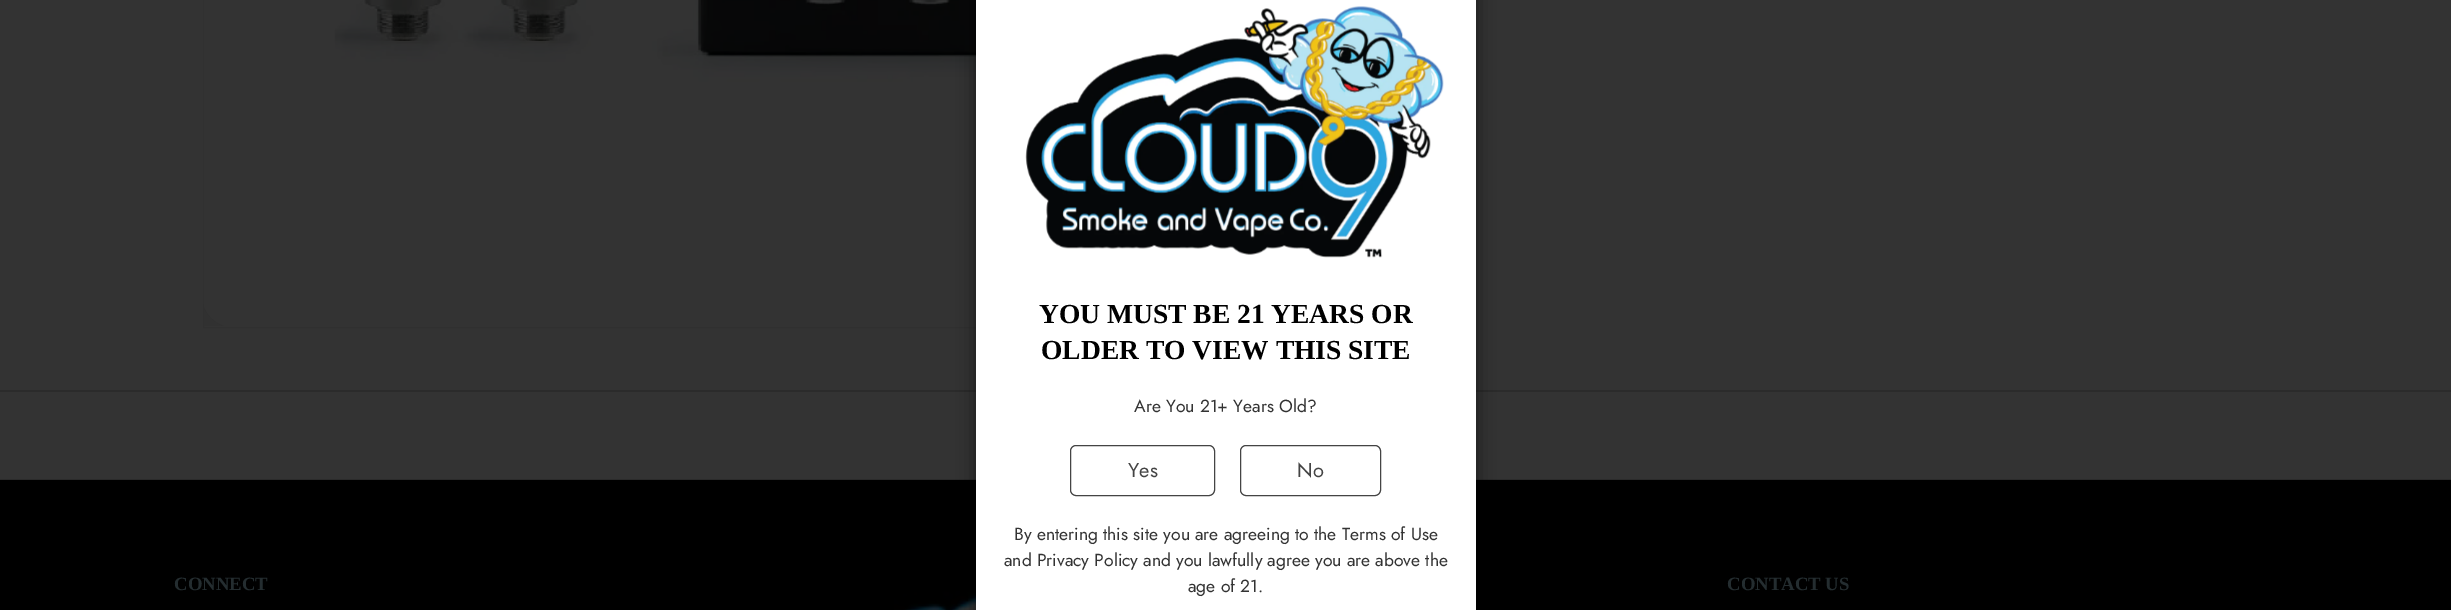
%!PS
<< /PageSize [2451 610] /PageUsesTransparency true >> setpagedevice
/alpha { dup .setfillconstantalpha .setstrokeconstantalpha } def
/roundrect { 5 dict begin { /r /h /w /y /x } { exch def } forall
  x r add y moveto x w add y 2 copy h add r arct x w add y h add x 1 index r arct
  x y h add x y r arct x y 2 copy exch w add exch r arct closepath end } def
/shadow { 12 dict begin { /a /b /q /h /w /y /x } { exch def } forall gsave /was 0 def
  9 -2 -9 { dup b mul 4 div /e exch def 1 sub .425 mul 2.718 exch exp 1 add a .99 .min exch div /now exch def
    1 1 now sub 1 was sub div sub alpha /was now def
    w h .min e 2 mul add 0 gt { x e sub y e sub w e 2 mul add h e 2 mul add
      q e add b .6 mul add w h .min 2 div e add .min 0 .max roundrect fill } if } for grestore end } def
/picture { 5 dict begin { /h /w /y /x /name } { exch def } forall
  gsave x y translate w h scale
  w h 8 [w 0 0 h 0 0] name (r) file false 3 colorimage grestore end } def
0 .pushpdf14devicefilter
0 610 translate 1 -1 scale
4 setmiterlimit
0.2 setgray
0 0 2451 610 rectfill
0.169 setgray
0 390 2451 2 rectfill
0.188 setgray
203.5 -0.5 1022 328 rectstroke
gsave
204 0 1021 326 rectclip
201 -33 1024 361 33 roundrect fill
grestore
(img1.rgb) 203 0 773 326 picture
0.169 setgray
0 479 2451 1 rectfill
0 setgray
0 480 2451 130 rectfill
(img3.rgb) 894 575 82 35 picture
976 -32 500 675 13 9.5 0.5 shadow
1 setgray
976 0 500 610 rectfill
(img2.rgb) 1025 6 419 252 picture
/LiberationSerif-Bold [27.5 0 0 -27.5 0 0] selectfont
0 setgray
1039 323 moveto (YOU MUST BE 21 YEARS OR) show
1041 359 moveto (OLDER TO VIEW THIS SITE) show
/Jost-Regular [17.5 0 0 -17.5 0 0] selectfont
0.2 setgray
1134 412 moveto (Are You 21+ Years Old?) show
0.267 setgray
1070.5 445.5 144 50 5.5 roundrect stroke
/Jost-Regular [20 0 0 -20 0 0] selectfont
1128 477 moveto (Yes) show
1240.5 445.5 140 50 5.5 roundrect stroke
1297 477 moveto (No) show
/Jost-Regular [17.5 0 0 -17.5 0 0] selectfont
0.2 setgray
1014 540 moveto (By entering this site you are agreeing to the Terms of Use) show
1004 566 moveto (and Privacy Policy and you lawfully agree you are above the) show
1188 592 moveto (age of 21.) show
/LiberationSerif-Bold [18.75 0 0 -18.75 0 0] selectfont
0.141 0.176 0.188 setrgbcolor
174 590 moveto (CONNECT) show
1727 590 moveto (CONTACT US) show
.poppdf14devicefilter showpage
